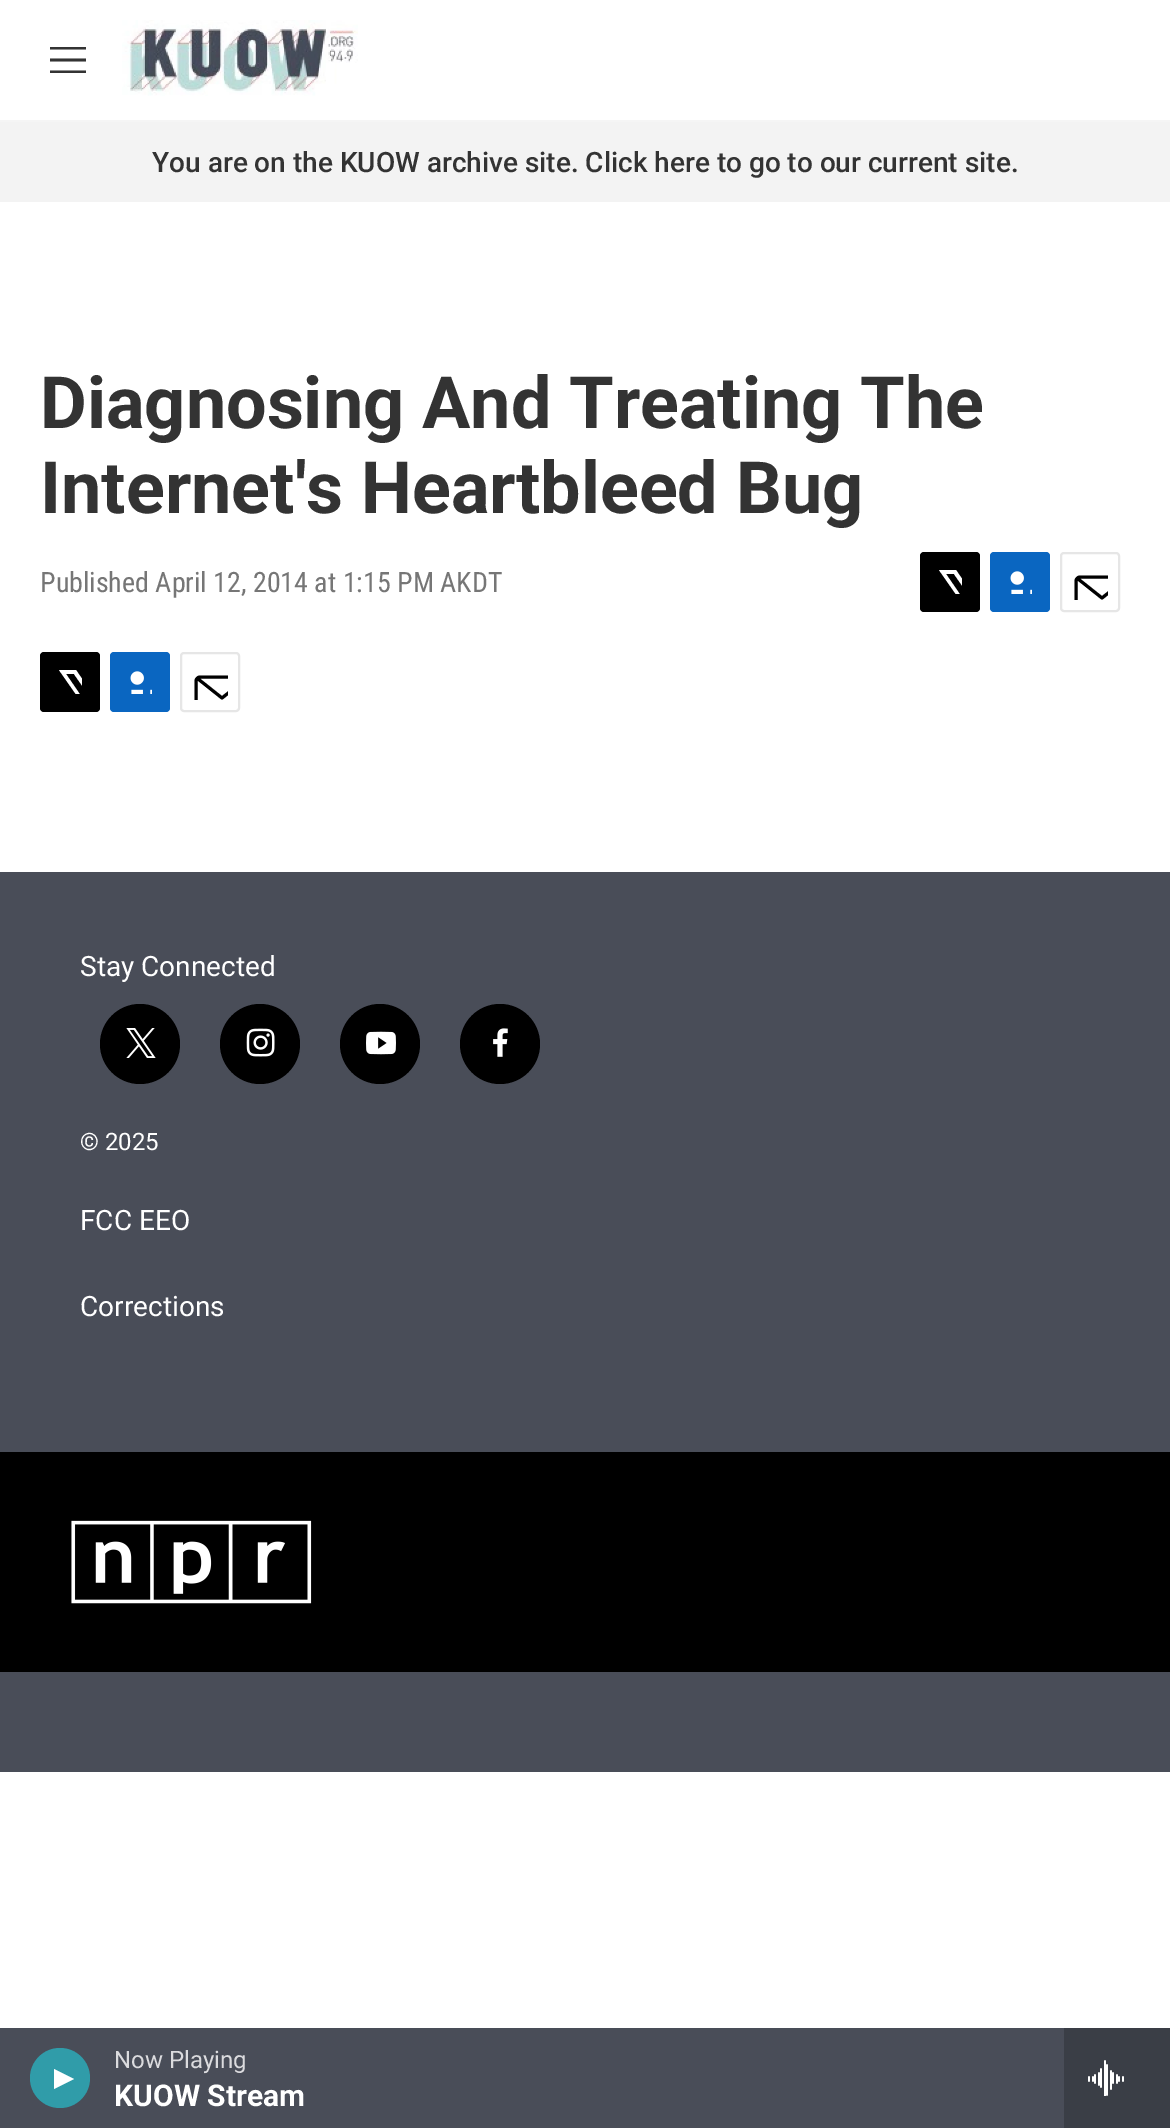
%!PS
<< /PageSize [1170 2128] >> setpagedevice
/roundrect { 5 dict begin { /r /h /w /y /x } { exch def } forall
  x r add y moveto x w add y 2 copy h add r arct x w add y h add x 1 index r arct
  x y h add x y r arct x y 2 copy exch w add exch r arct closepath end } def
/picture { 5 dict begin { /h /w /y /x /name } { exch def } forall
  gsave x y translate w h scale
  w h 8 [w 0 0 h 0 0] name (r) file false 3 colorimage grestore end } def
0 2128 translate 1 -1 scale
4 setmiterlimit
1 setgray
0 0 1170 2128 rectfill
0.953 setgray
0 122 1170 80 rectfill
/Roboto-Medium [28 0 0 -28 0 0] selectfont
0.2 setgray
152 172 moveto (You are on the KUOW archive site. Click here to go to our current site.) show
/Roboto-Bold [72 0 0 -72 0 0] selectfont
40 428 moveto (Diagnosing And Treating The) show
40 513 moveto (Internet's Heartbleed Bug) show
/RobotoCondensed-Regular [28 0 0 -28 0 0] selectfont
0.463 setgray
40 592 moveto (Published April 12, 2014 at 1:15 PM AKDT) show
0 setgray
920 552 60 60 4 roundrect fill
gsave
938 570 24 24 rectclip
1 setgray
newpath 974 595 moveto 980 604 lineto 980 606 981 609 979 610 curveto 954 574 lineto 946 574 lineto 972 612 lineto 967 612 lineto 964 607 lineto 960 612 lineto 954 612 lineto 962 603 lineto 939 570 lineto 956 570 lineto 971 592 lineto 980 582 lineto 980 588 lineto closepath fill
grestore
0.039 0.4 0.757 setrgbcolor
990 552 60 60 4 roundrect fill
(img1.rgb) 1010 571 22 23 picture
0.902 setgray
2 setlinewidth
1061 553 58 58 3 roundrect stroke
gsave
1072 564 36 36 rectclip
0 setgray
3 setlinewidth
1 setlinecap
1 setlinejoin
newpath 1128 608 moveto 1128 610 1126 611.5 1124 611.5 curveto 1080 611.5 lineto 1078 611.5 1076 610 1076 608 curveto 1076 581 lineto 1076 579 1078 577 1080 577 curveto 1124 577 lineto 1126 577 1128 579 1128 581 curveto closepath 1126.5 578.5 moveto 1102 598 lineto 1077.5 578.5 lineto stroke
grestore
0 setgray
40 652 60 60 4 roundrect fill
gsave
58 670 24 24 rectclip
1 setgray
newpath 94 695 moveto 100 704 lineto 100 706 101 709 99 710 curveto 74 674 lineto 66 674 lineto 92 712 lineto 87 712 lineto 84 707 lineto 80 712 lineto 74 712 lineto 82 703 lineto 59 670 lineto 76 670 lineto 91 692 lineto 100 682 lineto 100 688 lineto closepath fill
grestore
0.039 0.4 0.757 setrgbcolor
110 652 60 60 4 roundrect fill
(img1.rgb) 130 671 22 23 picture
0.902 setgray
181 653 58 58 3 roundrect stroke
gsave
192 664 36 36 rectclip
0 setgray
3 setlinewidth
1 setlinecap
1 setlinejoin
newpath 248 708 moveto 248 710 246 711.5 244 711.5 curveto 200 711.5 lineto 198 711.5 196 710 196 708 curveto 196 681 lineto 196 679 198 677 200 677 curveto 244 677 lineto 246 677 248 679 248 681 curveto closepath 246.5 678.5 moveto 222 698 lineto 197.5 678.5 lineto stroke
grestore
0.286 0.302 0.345 setrgbcolor
0 872 1170 900 rectfill
/Roboto-Regular [28 0 0 -28 0 0] selectfont
1 setgray
80 976 moveto (Stay Connected) show
0 setgray
newpath 140 1044 40 0 360 arc closepath fill
(img2.rgb) 126 1028 30 30 picture
newpath 260 1044 40 0 360 arc closepath fill
(img3.rgb) 246 1028 29 29 picture
newpath 380 1044 40 0 360 arc closepath fill
(img4.rgb) 366 1031 30 24 picture
newpath 500 1044 40 0 360 arc closepath fill
(img5.rgb) 493 1028 15 29 picture
/Roboto-Regular [24 0 0 -24 0 0] selectfont
1 setgray
80 1150 moveto (© 2025) show
/Roboto-Regular [28 0 0 -28 0 0] selectfont
80 1230 moveto (FCC EEO) show
80 1316 moveto (Corrections) show
0 setgray
0 1452 1170 220 rectfill
(img6.rgb) 71 1520 241 84 picture
0.961 setgray
0 120 1170 2 rectfill
0.2 setgray
newpath 50 61.5 moveto 50 58.5 lineto 86 58.5 lineto 86 61.5 lineto closepath 50 49.5 moveto 50 47 lineto 86 47 lineto 86 49.5 lineto closepath 50 73 moveto 50 70.5 lineto 86 70.5 lineto 86 73 lineto closepath eofill
(img7.rgb) 122 20 236 76 picture
0.286 0.302 0.345 setrgbcolor
0 2028 1064 100 rectfill
0.188 0.612 0.663 setrgbcolor
newpath 60 2078 30 0 360 arc closepath fill
1 setgray
newpath 54 2069 moveto 74 2079 lineto 54 2089 lineto closepath fill
/Roboto-Regular [24 0 0 -24 0 0] selectfont
0.859 0.859 0.871 setrgbcolor
114 2068 moveto (Now Playing) show
/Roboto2-Bold [30 0 0 -30 0 0] selectfont
1 setgray
114 2106 moveto (KUOW Stream) show
0.227 0.243 0.275 setrgbcolor
1064 2028 106 100 rectfill
(img8.rgb) 1088 2060 36 36 picture
showpage
